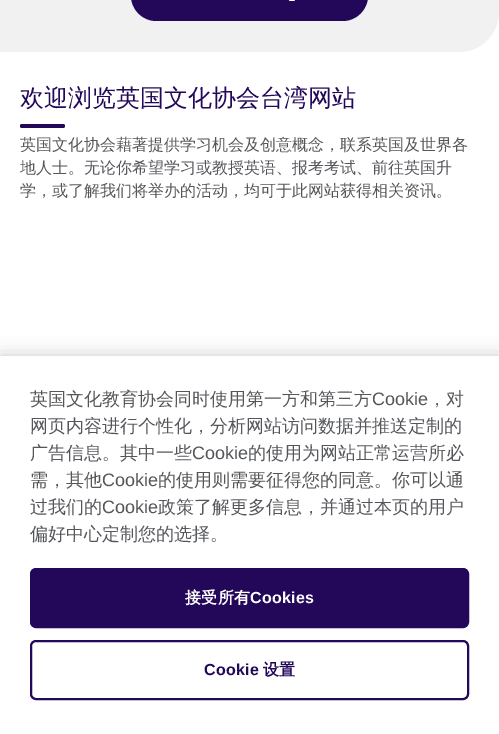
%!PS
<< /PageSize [499 734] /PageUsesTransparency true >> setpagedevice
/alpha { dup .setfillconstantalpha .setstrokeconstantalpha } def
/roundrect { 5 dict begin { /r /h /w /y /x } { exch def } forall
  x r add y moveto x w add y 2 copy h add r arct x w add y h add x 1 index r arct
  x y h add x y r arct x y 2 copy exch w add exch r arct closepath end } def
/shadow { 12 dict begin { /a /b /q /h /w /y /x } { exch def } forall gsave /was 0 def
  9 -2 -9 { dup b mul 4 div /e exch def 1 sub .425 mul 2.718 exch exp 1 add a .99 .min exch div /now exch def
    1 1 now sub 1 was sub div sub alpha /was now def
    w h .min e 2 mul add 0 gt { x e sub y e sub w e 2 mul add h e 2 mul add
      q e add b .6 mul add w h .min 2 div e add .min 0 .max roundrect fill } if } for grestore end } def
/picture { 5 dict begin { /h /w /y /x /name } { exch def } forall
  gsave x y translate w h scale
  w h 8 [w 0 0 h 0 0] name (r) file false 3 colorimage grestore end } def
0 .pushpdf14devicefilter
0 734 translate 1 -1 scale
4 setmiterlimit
1 setgray
0 0 499 734 rectfill
0.945 setgray
newpath 0 -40 moveto 499 -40 lineto 499 12 lineto 499 34 481 52 459 52 curveto 0 52 lineto closepath fill
0.137 0.031 0.353 setrgbcolor
131 -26 237 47 25.5 roundrect fill
(img1.rgb) 289 0 6 1 picture
/WenQuanYiZenHei-Medium [24 0 0 -24 0 0] selectfont
20 106 moveto (欢迎浏览英国文化协会台湾网站) show
20 124 45 4 2 roundrect fill
/WenQuanYiZenHei-Medium [16 0 0 -16 0 0] selectfont
0.329 0.337 0.353 setrgbcolor
20 150 moveto (英国文化协会藉著提供学习机会及创意概念，联系英国及世界各) show
20 173 moveto (地人士。无论你希望学习或教授英语、报考考试、前往英国升) show
20 196 moveto (学，或了解我们将举办的活动，均可于此网站获得相关资讯。) show
0 setgray
0 356 499 378 0 9 0.2 shadow
1 setgray
0 356 499 378 rectfill
/WenQuanYiZenHei-Medium [18 0 0 -18 0 0] selectfont
0.329 0.337 0.353 setrgbcolor
30 405 moveto (英国文化教育协会同时使用第一方和第三方) show
/LiberationSans-Regular [18 0 0 -18 0 0] selectfont
372 405 moveto (Cookie) show
/WenQuanYiZenHei-Medium [18 0 0 -18 0 0] selectfont
428 405 moveto (，对) show
30 432 moveto (网页内容进行个性化，分析网站访问数据并推送定制的) show
30 459 moveto (广告信息。其中一些) show
/LiberationSans-Regular [18 0 0 -18 0 0] selectfont
192 459 moveto (Cookie) show
/WenQuanYiZenHei-Medium [18 0 0 -18 0 0] selectfont
248 459 moveto (的使用为网站正常运营所必) show
30 486 moveto (需，其他) show
/LiberationSans-Regular [18 0 0 -18 0 0] selectfont
102 486 moveto (Cookie) show
/WenQuanYiZenHei-Medium [18 0 0 -18 0 0] selectfont
158 486 moveto (的使用则需要征得您的同意。你可以通) show
30 513 moveto (过我们的) show
/LiberationSans-Regular [18 0 0 -18 0 0] selectfont
102 513 moveto (Cookie) show
/WenQuanYiZenHei-Medium [18 0 0 -18 0 0] selectfont
158 513 moveto (政策了解更多信息，并通过本页的用户) show
30 540 moveto (偏好中心定制您的选择。) show
0.137 0.031 0.353 setrgbcolor
31 569 437 58 5 roundrect gsave fill grestore
2 setlinewidth
stroke
/WenQuanYiZenHei-Bold [16 0 0 -16 0 0] selectfont
1 setgray
185 603 moveto 0.25 0 (接受所有) ashow
/LiberationSans-Bold [16 0 0 -16 0 0] selectfont
250 603 moveto 0.25 0 (Cookies) ashow
0.137 0.031 0.353 setrgbcolor
31 641 437 58 5 roundrect stroke
204 675 moveto 0.25 0 (Cookie) ashow
/WenQuanYiZenHei-Bold [16 0 0 -16 0 0] selectfont
263 675 moveto 0.25 0 (设置) ashow
.poppdf14devicefilter showpage
